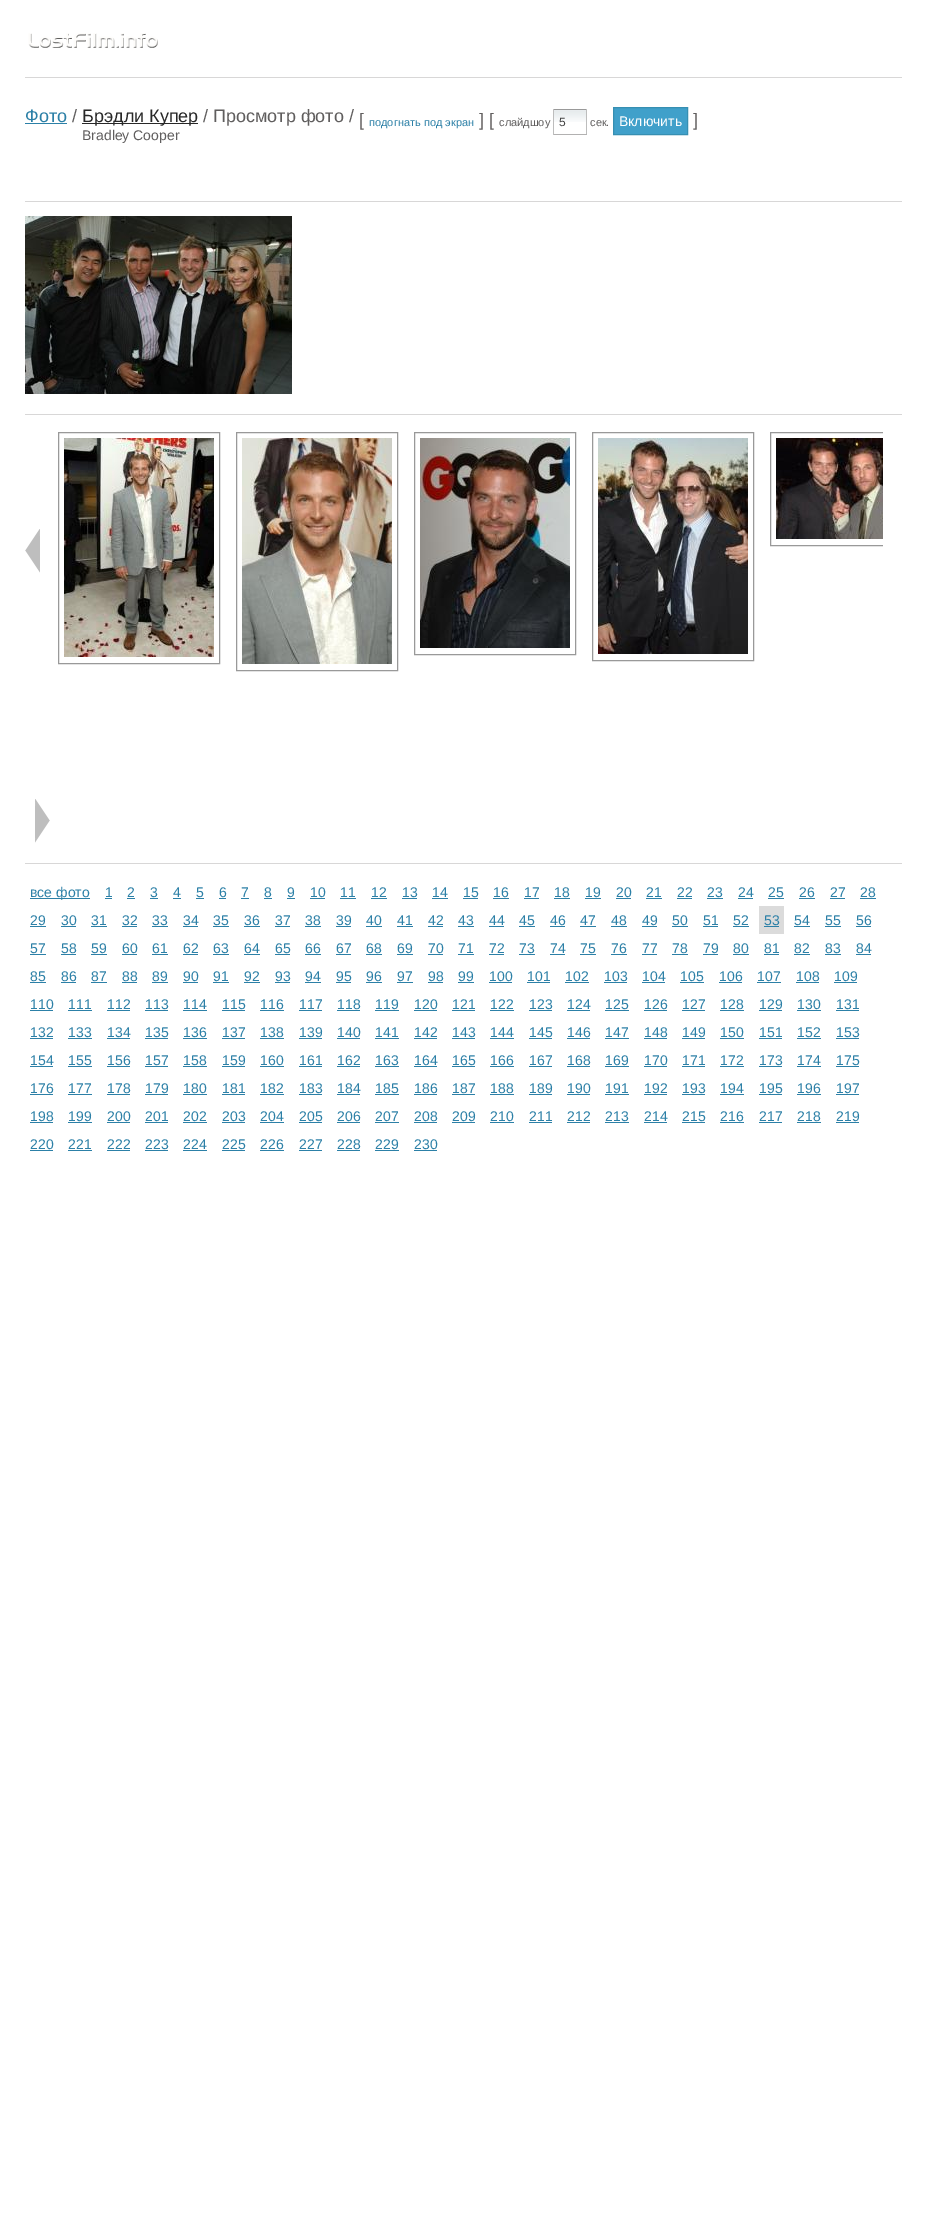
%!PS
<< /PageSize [927 2220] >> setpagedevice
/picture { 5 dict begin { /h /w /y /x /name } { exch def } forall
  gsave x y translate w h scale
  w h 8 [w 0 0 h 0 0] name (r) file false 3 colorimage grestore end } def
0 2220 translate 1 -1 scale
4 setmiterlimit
1 setgray
0 0 927 2220 rectfill
(img1.rgb) 28 33 130 15 picture
0.847 0.843 0.843 setrgbcolor
25 77 877 1 rectfill
/LiberationSans-Regular [18 0 0 -18 0 0] selectfont
0.173 0.502 0.655 setrgbcolor
25 122 moveto (Фото) show
25 123 42 1 rectfill
0.376 0.369 0.369 setrgbcolor
72 122 moveto (/) show
0.157 setgray
82 123 116 1 rectfill
82 122 moveto (Брэдли Купер) show
/LiberationSans-Regular [14 0 0 -14 0 0] selectfont
0.376 0.369 0.369 setrgbcolor
82 140 moveto (Bradley Cooper) show
/LiberationSans-Regular [18 0 0 -18 0 0] selectfont
203 122 moveto (/ Просмотр фото /) show
359 126 moveto ([) show
/LiberationSans-Regular [11 0 0 -11 0 0] selectfont
0.173 0.502 0.655 setrgbcolor
369 126 moveto (подогнать под экран) show
/LiberationSans-Regular [18 0 0 -18 0 0] selectfont
0.376 0.369 0.369 setrgbcolor
479 126 moveto (] [) show
/LiberationSans-Regular [11 0 0 -11 0 0] selectfont
499 126 moveto (слайдшоу) show
(img2.rgb) 554 110 32 12 picture
0.6 setgray
553 109 34 1 rectfill
0.741 setgray
586 109 1 26 rectfill
0.698 0.694 0.694 setrgbcolor
553 134 34 1 rectfill
0.741 setgray
553 109 1 26 rectfill
/LiberationSans-Regular [12 0 0 -12 0 0] selectfont
0.267 setgray
559 126 moveto (5) show
/LiberationSans-Regular [11 0 0 -11 0 0] selectfont
0.376 0.369 0.369 setrgbcolor
590 126 moveto (сек.) show
0.251 0.627 0.792 setrgbcolor
newpath 613.5 107.5 moveto 687.5 107.5 lineto 687.5 134.5 lineto 613.5 134.5 lineto closepath gsave fill grestore
0.212 0.561 0.698 setrgbcolor
stroke
/LiberationSans-Regular [14 0 0 -14 0 0] selectfont
1 setgray
619 126 moveto (Включить) show
/LiberationSans-Regular [18 0 0 -18 0 0] selectfont
0.376 0.369 0.369 setrgbcolor
693 126 moveto (]) show
0.847 0.843 0.843 setrgbcolor
25 201 877 1 rectfill
(img3.rgb) 25 216 267 178 picture
25 414 877 1 rectfill
(img4.rgb) 25 529 15 44 picture
0.6 setgray
58.5 432.5 161 231 rectstroke
(img5.rgb) 64 438 150 219 picture
236.5 432.5 161 238 rectstroke
(img6.rgb) 242 438 150 226 picture
414.5 432.5 161 222 rectstroke
(img7.rgb) 420 438 150 210 picture
592.5 432.5 161 228 rectstroke
(img8.rgb) 598 438 150 216 picture
gsave
50 429 833 270 rectclip
770.5 432.5 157 113 rectstroke
grestore
(img9.rgb) 776 438 107 101 picture
(img10.rgb) 35 799 15 44 picture
0.847 0.843 0.843 setrgbcolor
25 863 877 1 rectfill
0.173 0.502 0.655 setrgbcolor
30 898 60 1 rectfill
/LiberationSans-Regular [14 0 0 -14 0 0] selectfont
30 897 moveto (все фото) show
105 897 moveto (1) show
105 898 7 1 rectfill
127 897 moveto (2) show
127 898 8 1 rectfill
150 897 moveto (3) show
150 898 8 1 rectfill
173 897 moveto (4) show
173 898 8 1 rectfill
196 897 moveto (5) show
196 898 8 1 rectfill
219 897 moveto (6) show
219 898 7 1 rectfill
241 897 moveto (7) show
241 898 8 1 rectfill
264 897 moveto (8) show
264 898 8 1 rectfill
287 897 moveto (9) show
287 898 8 1 rectfill
310 897 moveto (10) show
310 898 15 1 rectfill
340 897 moveto (11) show
340 898 16 1 rectfill
371 897 moveto (12) show
371 898 16 1 rectfill
402 897 moveto (13) show
402 898 15 1 rectfill
432 897 moveto (14) show
432 898 16 1 rectfill
463 897 moveto (15) show
463 898 15 1 rectfill
493 897 moveto (16) show
493 898 16 1 rectfill
524 897 moveto (17) show
524 898 15 1 rectfill
554 897 moveto (18) show
554 898 16 1 rectfill
585 897 moveto (19) show
585 898 16 1 rectfill
616 897 moveto (20) show
616 898 15 1 rectfill
646 897 moveto (21) show
646 898 16 1 rectfill
677 897 moveto (22) show
677 898 15 1 rectfill
707 897 moveto (23) show
707 898 16 1 rectfill
738 897 moveto (24) show
738 898 15 1 rectfill
768 897 moveto (25) show
768 898 16 1 rectfill
799 897 moveto (26) show
799 898 16 1 rectfill
830 897 moveto (27) show
830 898 15 1 rectfill
860 897 moveto (28) show
860 898 16 1 rectfill
30 925 moveto (29) show
30 926 16 1 rectfill
61 925 moveto (30) show
61 926 15 1 rectfill
91 925 moveto (31) show
91 926 16 1 rectfill
122 925 moveto (32) show
122 926 15 1 rectfill
152 925 moveto (33) show
152 926 16 1 rectfill
183 925 moveto (34) show
183 926 15 1 rectfill
213 925 moveto (35) show
213 926 16 1 rectfill
244 925 moveto (36) show
244 926 16 1 rectfill
275 925 moveto (37) show
275 926 15 1 rectfill
305 925 moveto (38) show
305 926 16 1 rectfill
336 925 moveto (39) show
336 926 15 1 rectfill
366 925 moveto (40) show
366 926 16 1 rectfill
397 925 moveto (41) show
397 926 16 1 rectfill
428 925 moveto (42) show
428 926 15 1 rectfill
458 925 moveto (43) show
458 926 16 1 rectfill
489 925 moveto (44) show
489 926 15 1 rectfill
519 925 moveto (45) show
519 926 16 1 rectfill
550 925 moveto (46) show
550 926 15 1 rectfill
580 925 moveto (47) show
580 926 16 1 rectfill
611 925 moveto (48) show
611 926 16 1 rectfill
642 925 moveto (49) show
642 926 15 1 rectfill
672 925 moveto (50) show
672 926 16 1 rectfill
703 925 moveto (51) show
703 926 15 1 rectfill
733 925 moveto (52) show
733 926 16 1 rectfill
0.859 setgray
759 906 25 28 rectfill
0.173 0.502 0.655 setrgbcolor
764 925 moveto (53) show
764 926 15 1 rectfill
794 925 moveto (54) show
794 926 16 1 rectfill
825 925 moveto (55) show
825 926 16 1 rectfill
856 925 moveto (56) show
856 926 15 1 rectfill
30 953 moveto (57) show
30 954 16 1 rectfill
61 953 moveto (58) show
61 954 15 1 rectfill
91 953 moveto (59) show
91 954 16 1 rectfill
122 953 moveto (60) show
122 954 15 1 rectfill
152 953 moveto (61) show
152 954 16 1 rectfill
183 953 moveto (62) show
183 954 15 1 rectfill
213 953 moveto (63) show
213 954 16 1 rectfill
244 953 moveto (64) show
244 954 16 1 rectfill
275 953 moveto (65) show
275 954 15 1 rectfill
305 953 moveto (66) show
305 954 16 1 rectfill
336 953 moveto (67) show
336 954 15 1 rectfill
366 953 moveto (68) show
366 954 16 1 rectfill
397 953 moveto (69) show
397 954 16 1 rectfill
428 953 moveto (70) show
428 954 15 1 rectfill
458 953 moveto (71) show
458 954 16 1 rectfill
489 953 moveto (72) show
489 954 15 1 rectfill
519 953 moveto (73) show
519 954 16 1 rectfill
550 953 moveto (74) show
550 954 15 1 rectfill
580 953 moveto (75) show
580 954 16 1 rectfill
611 953 moveto (76) show
611 954 16 1 rectfill
642 953 moveto (77) show
642 954 15 1 rectfill
672 953 moveto (78) show
672 954 16 1 rectfill
703 953 moveto (79) show
703 954 15 1 rectfill
733 953 moveto (80) show
733 954 16 1 rectfill
764 953 moveto (81) show
764 954 15 1 rectfill
794 953 moveto (82) show
794 954 16 1 rectfill
825 953 moveto (83) show
825 954 16 1 rectfill
856 953 moveto (84) show
856 954 15 1 rectfill
30 981 moveto (85) show
30 982 16 1 rectfill
61 981 moveto (86) show
61 982 15 1 rectfill
91 981 moveto (87) show
91 982 16 1 rectfill
122 981 moveto (88) show
122 982 15 1 rectfill
152 981 moveto (89) show
152 982 16 1 rectfill
183 981 moveto (90) show
183 982 15 1 rectfill
213 981 moveto (91) show
213 982 16 1 rectfill
244 981 moveto (92) show
244 982 16 1 rectfill
275 981 moveto (93) show
275 982 15 1 rectfill
305 981 moveto (94) show
305 982 16 1 rectfill
336 981 moveto (95) show
336 982 15 1 rectfill
366 981 moveto (96) show
366 982 16 1 rectfill
397 981 moveto (97) show
397 982 16 1 rectfill
428 981 moveto (98) show
428 982 15 1 rectfill
458 981 moveto (99) show
458 982 16 1 rectfill
489 981 moveto (100) show
489 982 23 1 rectfill
527 981 moveto (101) show
527 982 23 1 rectfill
565 981 moveto (102) show
565 982 24 1 rectfill
604 981 moveto (103) show
604 982 23 1 rectfill
642 981 moveto (104) show
642 982 23 1 rectfill
680 981 moveto (105) show
680 982 24 1 rectfill
719 981 moveto (106) show
719 982 23 1 rectfill
757 981 moveto (107) show
757 982 24 1 rectfill
796 981 moveto (108) show
796 982 23 1 rectfill
834 981 moveto (109) show
834 982 23 1 rectfill
30 1009 moveto (110) show
30 1010 23 1 rectfill
68 1009 moveto (111) show
68 1010 24 1 rectfill
107 1009 moveto (112) show
107 1010 23 1 rectfill
145 1009 moveto (113) show
145 1010 23 1 rectfill
183 1009 moveto (114) show
183 1010 24 1 rectfill
222 1009 moveto (115) show
222 1010 23 1 rectfill
260 1009 moveto (116) show
260 1010 24 1 rectfill
299 1009 moveto (117) show
299 1010 23 1 rectfill
337 1009 moveto (118) show
337 1010 23 1 rectfill
375 1009 moveto (119) show
375 1010 24 1 rectfill
414 1009 moveto (120) show
414 1010 23 1 rectfill
452 1009 moveto (121) show
452 1010 23 1 rectfill
490 1009 moveto (122) show
490 1010 24 1 rectfill
529 1009 moveto (123) show
529 1010 23 1 rectfill
567 1009 moveto (124) show
567 1010 23 1 rectfill
605 1009 moveto (125) show
605 1010 24 1 rectfill
644 1009 moveto (126) show
644 1010 23 1 rectfill
682 1009 moveto (127) show
682 1010 23 1 rectfill
720 1009 moveto (128) show
720 1010 24 1 rectfill
759 1009 moveto (129) show
759 1010 23 1 rectfill
797 1009 moveto (130) show
797 1010 24 1 rectfill
836 1009 moveto (131) show
836 1010 23 1 rectfill
30 1037 moveto (132) show
30 1038 23 1 rectfill
68 1037 moveto (133) show
68 1038 24 1 rectfill
107 1037 moveto (134) show
107 1038 23 1 rectfill
145 1037 moveto (135) show
145 1038 23 1 rectfill
183 1037 moveto (136) show
183 1038 24 1 rectfill
222 1037 moveto (137) show
222 1038 23 1 rectfill
260 1037 moveto (138) show
260 1038 24 1 rectfill
299 1037 moveto (139) show
299 1038 23 1 rectfill
337 1037 moveto (140) show
337 1038 23 1 rectfill
375 1037 moveto (141) show
375 1038 24 1 rectfill
414 1037 moveto (142) show
414 1038 23 1 rectfill
452 1037 moveto (143) show
452 1038 23 1 rectfill
490 1037 moveto (144) show
490 1038 24 1 rectfill
529 1037 moveto (145) show
529 1038 23 1 rectfill
567 1037 moveto (146) show
567 1038 23 1 rectfill
605 1037 moveto (147) show
605 1038 24 1 rectfill
644 1037 moveto (148) show
644 1038 23 1 rectfill
682 1037 moveto (149) show
682 1038 23 1 rectfill
720 1037 moveto (150) show
720 1038 24 1 rectfill
759 1037 moveto (151) show
759 1038 23 1 rectfill
797 1037 moveto (152) show
797 1038 24 1 rectfill
836 1037 moveto (153) show
836 1038 23 1 rectfill
30 1065 moveto (154) show
30 1066 23 1 rectfill
68 1065 moveto (155) show
68 1066 24 1 rectfill
107 1065 moveto (156) show
107 1066 23 1 rectfill
145 1065 moveto (157) show
145 1066 23 1 rectfill
183 1065 moveto (158) show
183 1066 24 1 rectfill
222 1065 moveto (159) show
222 1066 23 1 rectfill
260 1065 moveto (160) show
260 1066 24 1 rectfill
299 1065 moveto (161) show
299 1066 23 1 rectfill
337 1065 moveto (162) show
337 1066 23 1 rectfill
375 1065 moveto (163) show
375 1066 24 1 rectfill
414 1065 moveto (164) show
414 1066 23 1 rectfill
452 1065 moveto (165) show
452 1066 23 1 rectfill
490 1065 moveto (166) show
490 1066 24 1 rectfill
529 1065 moveto (167) show
529 1066 23 1 rectfill
567 1065 moveto (168) show
567 1066 23 1 rectfill
605 1065 moveto (169) show
605 1066 24 1 rectfill
644 1065 moveto (170) show
644 1066 23 1 rectfill
682 1065 moveto (171) show
682 1066 23 1 rectfill
720 1065 moveto (172) show
720 1066 24 1 rectfill
759 1065 moveto (173) show
759 1066 23 1 rectfill
797 1065 moveto (174) show
797 1066 24 1 rectfill
836 1065 moveto (175) show
836 1066 23 1 rectfill
30 1093 moveto (176) show
30 1094 23 1 rectfill
68 1093 moveto (177) show
68 1094 24 1 rectfill
107 1093 moveto (178) show
107 1094 23 1 rectfill
145 1093 moveto (179) show
145 1094 23 1 rectfill
183 1093 moveto (180) show
183 1094 24 1 rectfill
222 1093 moveto (181) show
222 1094 23 1 rectfill
260 1093 moveto (182) show
260 1094 24 1 rectfill
299 1093 moveto (183) show
299 1094 23 1 rectfill
337 1093 moveto (184) show
337 1094 23 1 rectfill
375 1093 moveto (185) show
375 1094 24 1 rectfill
414 1093 moveto (186) show
414 1094 23 1 rectfill
452 1093 moveto (187) show
452 1094 23 1 rectfill
490 1093 moveto (188) show
490 1094 24 1 rectfill
529 1093 moveto (189) show
529 1094 23 1 rectfill
567 1093 moveto (190) show
567 1094 23 1 rectfill
605 1093 moveto (191) show
605 1094 24 1 rectfill
644 1093 moveto (192) show
644 1094 23 1 rectfill
682 1093 moveto (193) show
682 1094 23 1 rectfill
720 1093 moveto (194) show
720 1094 24 1 rectfill
759 1093 moveto (195) show
759 1094 23 1 rectfill
797 1093 moveto (196) show
797 1094 24 1 rectfill
836 1093 moveto (197) show
836 1094 23 1 rectfill
30 1121 moveto (198) show
30 1122 23 1 rectfill
68 1121 moveto (199) show
68 1122 24 1 rectfill
107 1121 moveto (200) show
107 1122 23 1 rectfill
145 1121 moveto (201) show
145 1122 23 1 rectfill
183 1121 moveto (202) show
183 1122 24 1 rectfill
222 1121 moveto (203) show
222 1122 23 1 rectfill
260 1121 moveto (204) show
260 1122 24 1 rectfill
299 1121 moveto (205) show
299 1122 23 1 rectfill
337 1121 moveto (206) show
337 1122 23 1 rectfill
375 1121 moveto (207) show
375 1122 24 1 rectfill
414 1121 moveto (208) show
414 1122 23 1 rectfill
452 1121 moveto (209) show
452 1122 23 1 rectfill
490 1121 moveto (210) show
490 1122 24 1 rectfill
529 1121 moveto (211) show
529 1122 23 1 rectfill
567 1121 moveto (212) show
567 1122 23 1 rectfill
605 1121 moveto (213) show
605 1122 24 1 rectfill
644 1121 moveto (214) show
644 1122 23 1 rectfill
682 1121 moveto (215) show
682 1122 23 1 rectfill
720 1121 moveto (216) show
720 1122 24 1 rectfill
759 1121 moveto (217) show
759 1122 23 1 rectfill
797 1121 moveto (218) show
797 1122 24 1 rectfill
836 1121 moveto (219) show
836 1122 23 1 rectfill
30 1149 moveto (220) show
30 1150 23 1 rectfill
68 1149 moveto (221) show
68 1150 24 1 rectfill
107 1149 moveto (222) show
107 1150 23 1 rectfill
145 1149 moveto (223) show
145 1150 23 1 rectfill
183 1149 moveto (224) show
183 1150 24 1 rectfill
222 1149 moveto (225) show
222 1150 23 1 rectfill
260 1149 moveto (226) show
260 1150 24 1 rectfill
299 1149 moveto (227) show
299 1150 23 1 rectfill
337 1149 moveto (228) show
337 1150 23 1 rectfill
375 1149 moveto (229) show
375 1150 24 1 rectfill
414 1149 moveto (230) show
414 1150 23 1 rectfill
showpage
